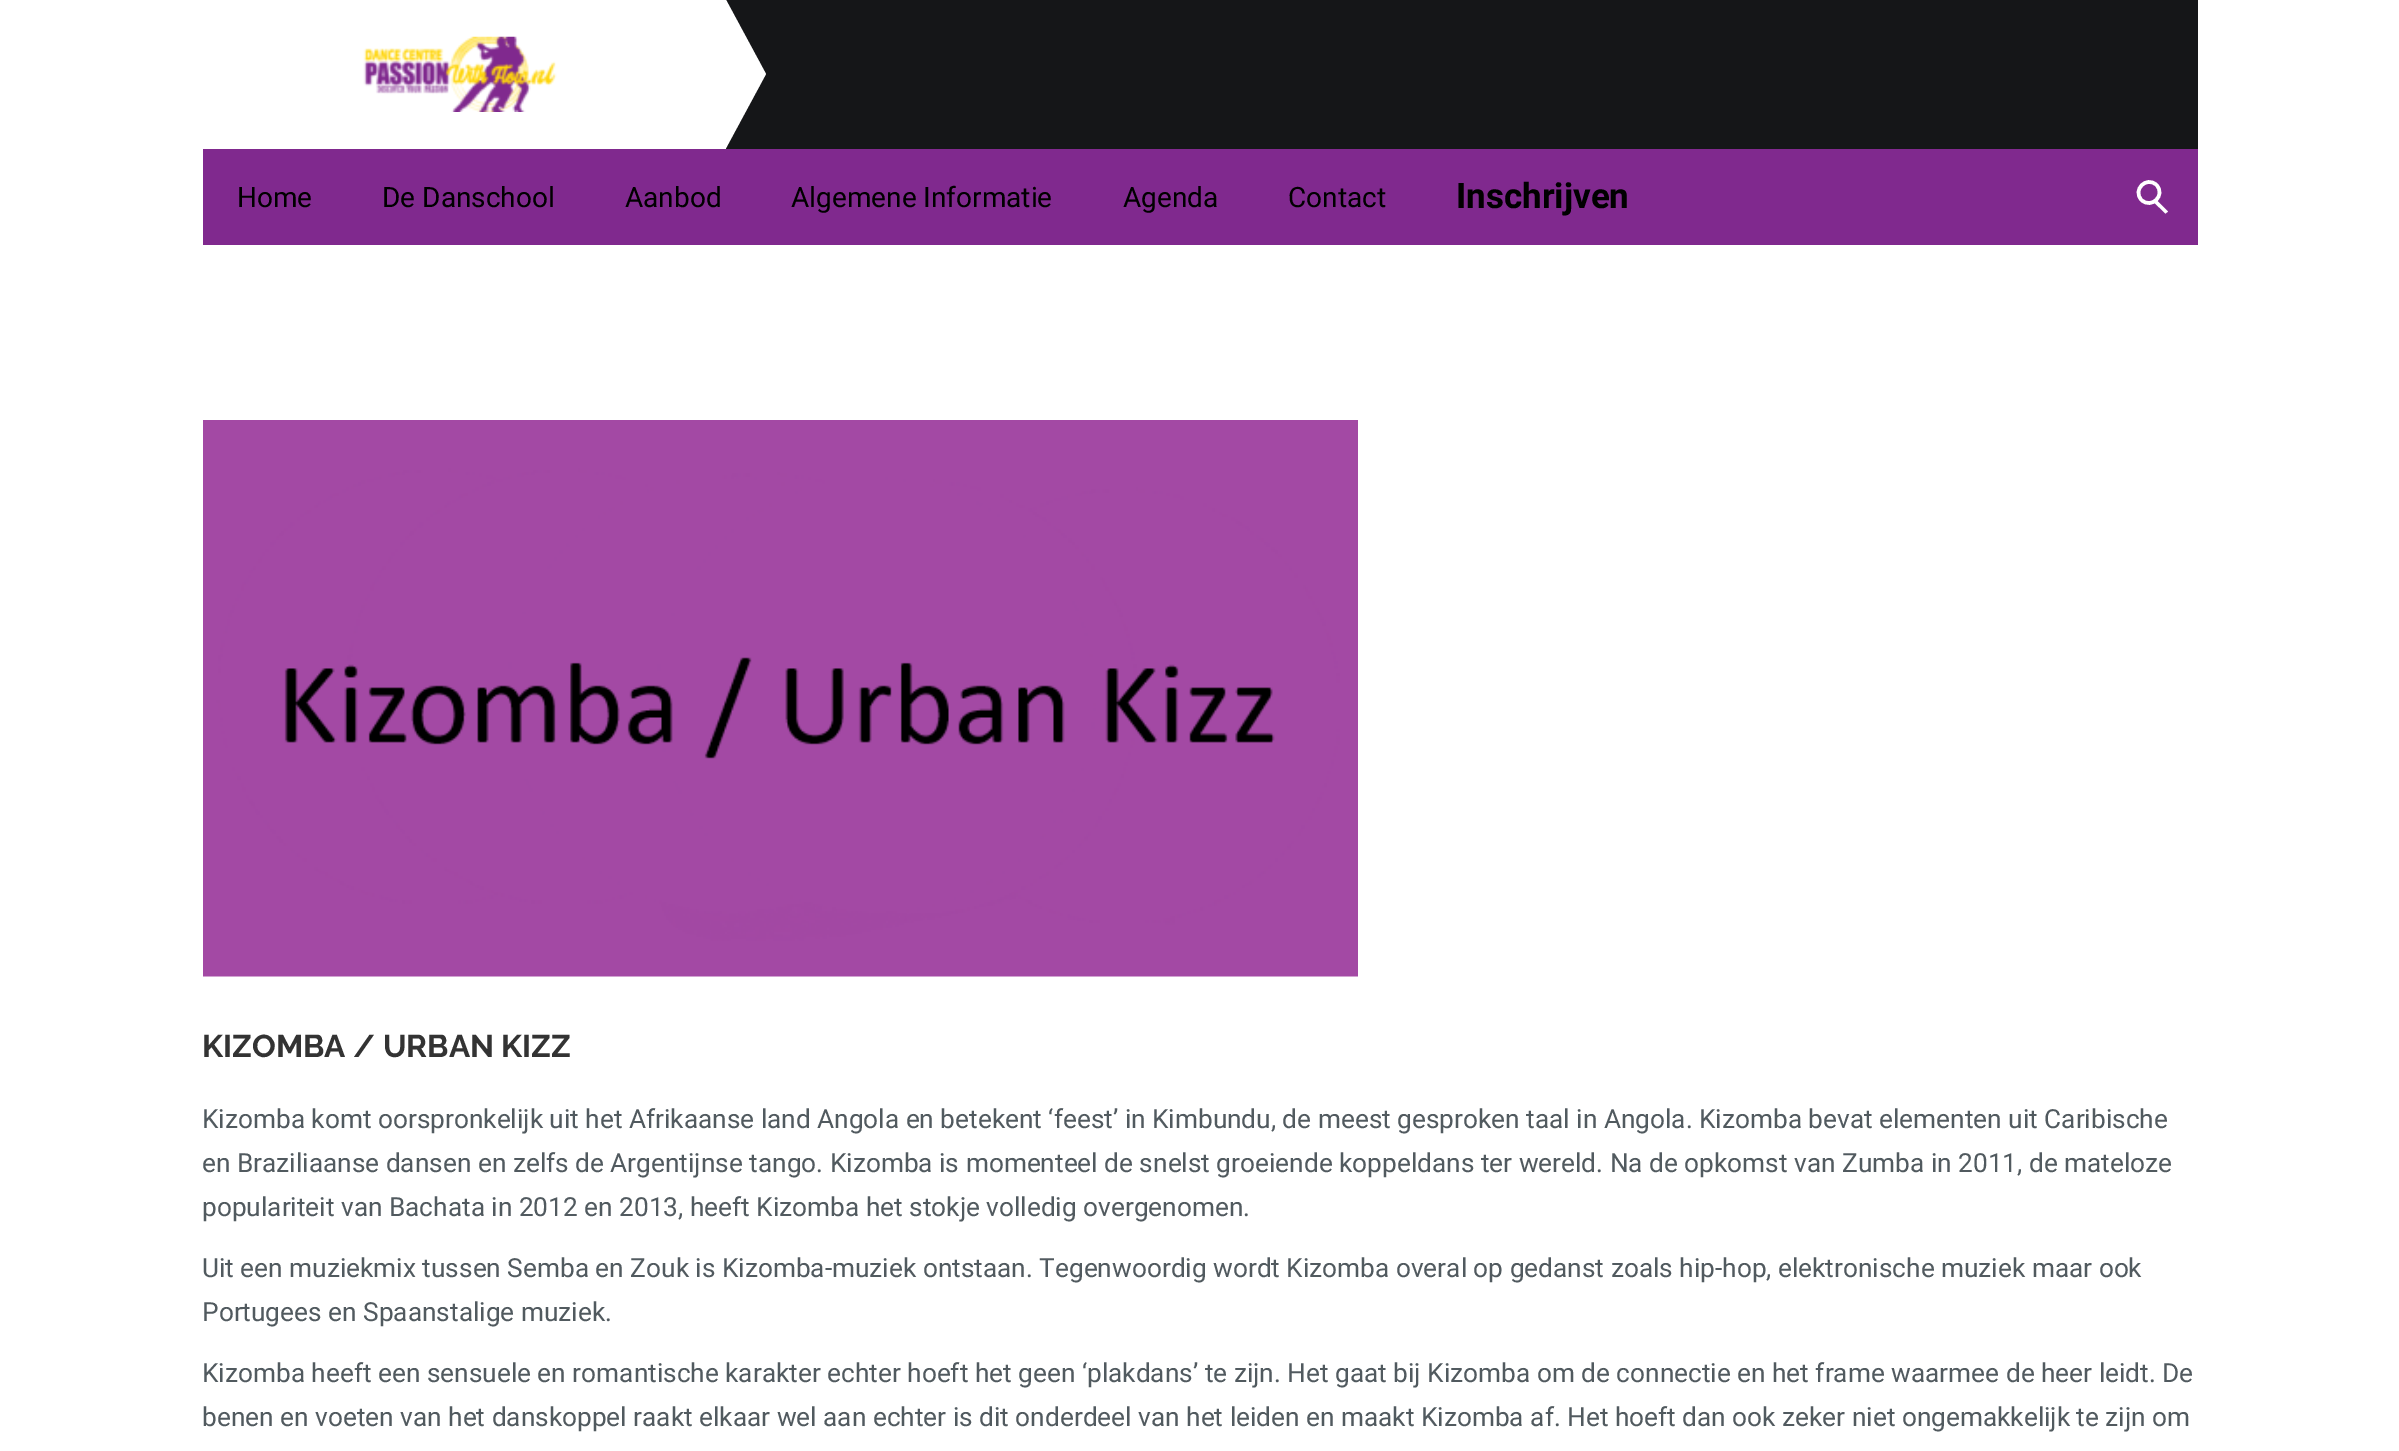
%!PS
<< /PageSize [2399 1451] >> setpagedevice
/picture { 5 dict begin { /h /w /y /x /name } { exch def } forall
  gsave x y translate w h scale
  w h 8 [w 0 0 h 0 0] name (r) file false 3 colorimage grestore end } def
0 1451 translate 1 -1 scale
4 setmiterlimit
1 setgray
0 0 2399 1451 rectfill
0.082 0.086 0.094 setrgbcolor
726 0 1472 149 rectfill
(img1.rgb) 363 36 194 76 picture
1 setgray
newpath 685 74 moveto 725 -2 lineto 766 74 lineto 725 150 lineto closepath fill
0.502 0.161 0.557 setrgbcolor
203 149 1995 96 rectfill
/Roboto-Regular [28 0 0 -28 0 0] selectfont
0 setgray
237 207 moveto (Home) show
382 207 moveto (De Danschool) show
625 207 moveto (Aanbod) show
791 207 moveto (Algemene Informatie) show
1123 207 moveto (Agenda) show
1288 207 moveto (Contact) show
/Roboto-Bold [35 0 0 -35 0 0] selectfont
1456 208 moveto (Inschrijven) show
1 setgray
newpath 2155.5 199 moveto 2168 211.5 lineto 2165.5 213.5 lineto 2153 201.5 lineto closepath fill
3.5 setlinewidth
newpath 2156.5 185 moveto 2166 195 2151.5 209.5 2141.5 200 curveto 2132 190 2146.5 175.5 2156.5 185 curveto closepath stroke
(img2.rgb) 203 420 1155 557 picture
/Raleway-Bold [31.5 0 0 -31.5 0 0] selectfont
0.2 setgray
202 1057 moveto (KIZOMBA / URBAN KIZZ) show
/Roboto-Regular [26.25 0 0 -26.25 0 0] selectfont
0.318 0.353 0.373 setrgbcolor
202 1128 moveto (Kizomba komt oorspronkelijk uit het Afrikaanse land Angola en betekent ‘feest’ in Kimbundu, de meest gesproken taal in Angola. Kizomba bevat elementen uit Caribische) show
202 1172 moveto (en Braziliaanse dansen en zelfs de Argentijnse tango. Kizomba is momenteel de snelst groeiende koppeldans ter wereld. Na de opkomst van Zumba in 2011, de mateloze) show
202 1216 moveto (populariteit van Bachata in 2012 en 2013, heeft Kizomba het stokje volledig overgenomen.) show
202 1277 moveto (Uit een muziekmix tussen Semba en Zouk is Kizomba-muziek ontstaan. Tegenwoordig wordt Kizomba overal op gedanst zoals hip-hop, elektronische muziek maar ook) show
202 1321 moveto (Portugees en Spaanstalige muziek.) show
202 1382 moveto (Kizomba heeft een sensuele en romantische karakter echter hoeft het geen ‘plakdans’ te zijn. Het gaat bij Kizomba om de connectie en het frame waarmee de heer leidt. De) show
202 1426 moveto (benen en voeten van het danskoppel raakt elkaar wel aan echter is dit onderdeel van het leiden en maakt Kizomba af. Het hoeft dan ook zeker niet ongemakkelijk te zijn om) show
showpage
